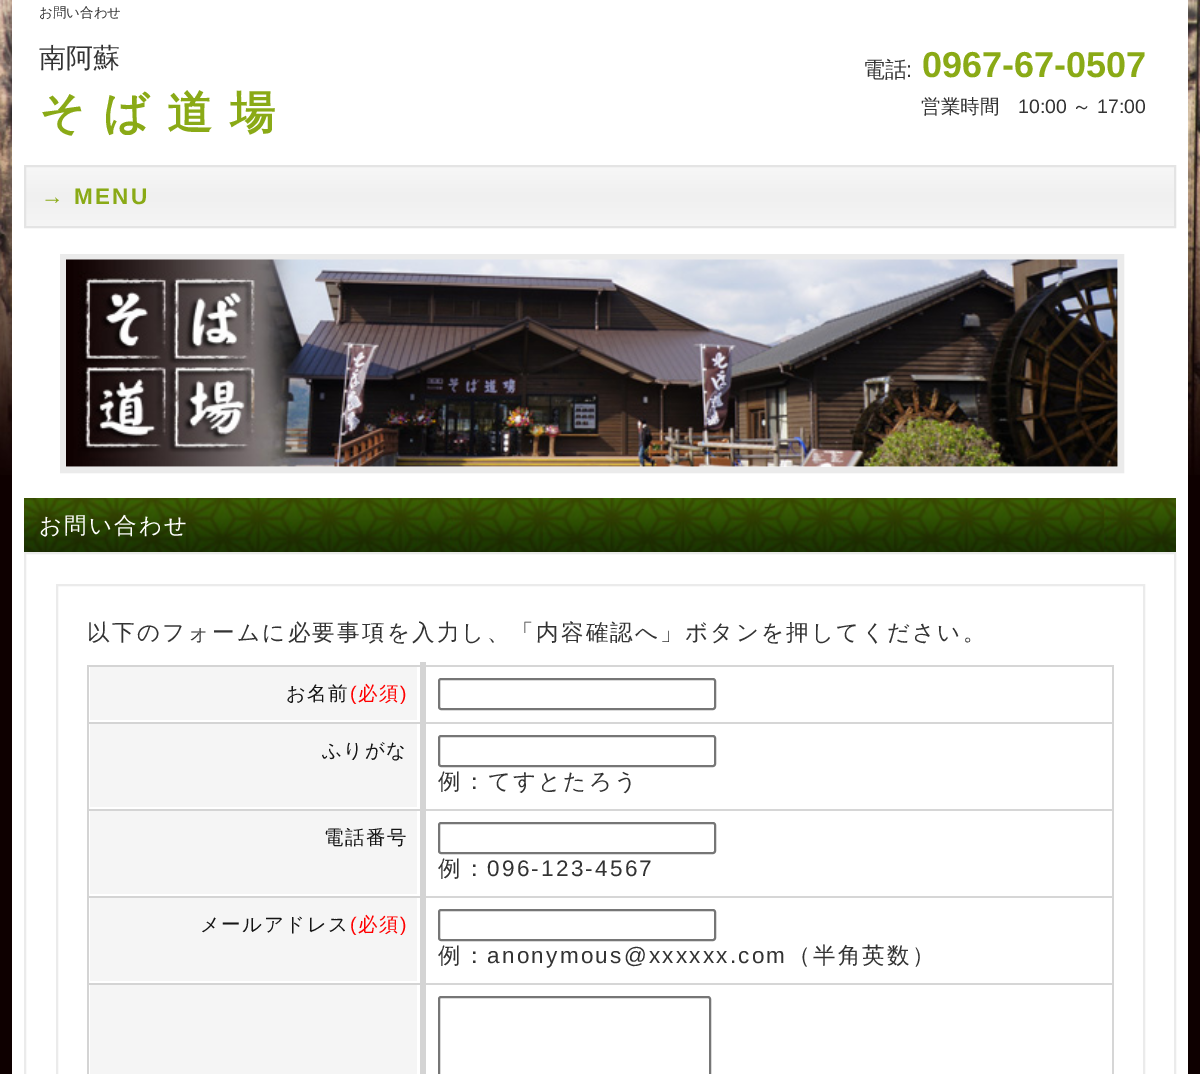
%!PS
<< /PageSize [1200 1074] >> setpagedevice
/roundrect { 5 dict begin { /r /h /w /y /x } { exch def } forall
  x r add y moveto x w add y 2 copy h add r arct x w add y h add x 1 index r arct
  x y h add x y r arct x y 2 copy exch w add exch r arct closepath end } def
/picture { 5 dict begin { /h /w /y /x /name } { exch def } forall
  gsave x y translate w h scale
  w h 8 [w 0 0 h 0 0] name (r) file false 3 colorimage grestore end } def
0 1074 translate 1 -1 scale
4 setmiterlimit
0.055 0 0 setrgbcolor
0 0 1200 1074 rectfill
(img1.rgb) 0 0 1200 475 picture
1 setgray
12 0 1176 1074 rectfill
/WenQuanYiZenHei-Medium [13.5 0 0 -13.5 0 0] selectfont
0.2 setgray
39 17 moveto (お問い合わせ) show
/WenQuanYiZenHei-Medium [27 0 0 -27 0 0] selectfont
39 67 moveto (南阿蘇) show
/WenQuanYiZenHei-Bold [45 0 0 -45 0 0] selectfont
0.541 0.667 0.086 setrgbcolor
39 128 moveto 18 0 (そば道場) ashow
/WenQuanYiZenHei-Medium [22 0 0 -22 0 0] selectfont
0.2 setgray
863 77 moveto (電話) show
/LiberationSans-Regular [22 0 0 -22 0 0] selectfont
906 77 moveto (:) show
/LiberationSans-Bold [36 0 0 -36 0 0] selectfont
0.541 0.667 0.086 setrgbcolor
922 77 moveto (0967-67-0507) show
/WenQuanYiZenHei-Medium [19.5 0 0 -19.5 0 0] selectfont
0.2 setgray
921 113 moveto (営業時間) show
/LiberationSans-Regular [19.5 0 0 -19.5 0 0] selectfont
1018 113 moveto (10:00) show
/WenQuanYiZenHei-Medium [19.5 0 0 -19.5 0 0] selectfont
1072 113 moveto (～) show
/LiberationSans-Regular [19.5 0 0 -19.5 0 0] selectfont
1097 113 moveto (17:00) show
gsave newpath 26 167 moveto 1174 167 lineto 1174 226 lineto 26 226 lineto closepath clip newpath
<< /ShadingType 2 /ColorSpace /DeviceRGB /Coords [600 166 600 227] /Extend [true true] /Function << /FunctionType 3 /Domain [0 1] /Functions [<< /FunctionType 2 /Domain [0 1] /C0 [0.969 0.969 0.969] /C1 [0.941 0.941 0.941] /N 1 >> << /FunctionType 2 /Domain [0 1] /C0 [0.941 0.941 0.941] /C1 [0.961 0.961 0.961] /N 1 >>] /Bounds [0.5] /Encode [0 1 0 1] >> >> shfill grestore
0.894 setgray
2 setlinewidth
25 166 1150 61 rectstroke
/LiberationSans-Bold [22.5 0 0 -22.5 0 0] selectfont
0.541 0.667 0.086 setrgbcolor
41 204 moveto 2.25 0 (→ MENU) ashow
0.922 setgray
6 setlinewidth
63 257 1058 213 rectstroke
(img2.rgb) 66 259 1052 208 picture
(img3.rgb) 24 498 1152 54 picture
/WenQuanYiZenHei-Medium [22.5 0 0 -22.5 0 0] selectfont
1 setgray
39 533 moveto 2.25 0 (お問い合わせ) ashow
0.922 setgray
2 setlinewidth
25 553 1150 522 rectstroke
57 585 1087 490 rectstroke
0.2 setgray
87 640 moveto 2.25 0 (以下のフォームに必要事項を入力し、「内容確認へ」ボタンを押してください。) ashow
0.961 setgray
90 985 327 89 rectfill
0.831 setgray
87 983 2 91 rectfill
0.839 setgray
422 665 691 2 rectfill
0.831 setgray
87 665 336 2 rectfill
0.839 setgray
1112 722 2 352 rectfill
1112 665 2 58 rectfill
422 722 691 2 rectfill
422 809 691 2 rectfill
422 896 691 2 rectfill
422 983 691 2 rectfill
0.831 setgray
87 983 336 2 rectfill
87 896 2 88 rectfill
87 896 336 2 rectfill
87 809 2 88 rectfill
87 809 336 2 rectfill
87 722 2 88 rectfill
87 722 336 2 rectfill
420 662 6 412 rectfill
0.463 setgray
439 997 271 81 2 roundrect stroke
0.961 setgray
90 667 327 53 rectfill
0.831 setgray
87 665 2 58 rectfill
/WenQuanYiZenHei-Medium [19.5 0 0 -19.5 0 0] selectfont
0.082 setgray
286 700 moveto 1.5 0 (お名前) ashow
/LiberationSans-Regular [19.5 0 0 -19.5 0 0] selectfont
1 0 0 setrgbcolor
350 700 moveto 1.5 0 (\() ashow
/WenQuanYiZenHei-Medium [19.5 0 0 -19.5 0 0] selectfont
358 700 moveto 1.5 0 (必須) ashow
/LiberationSans-Regular [19.5 0 0 -19.5 0 0] selectfont
400 700 moveto 1.5 0 (\)) ashow
0.463 setgray
439 679 276 30 2 roundrect stroke
0.961 setgray
90 724 327 83 rectfill
/WenQuanYiZenHei-Medium [19.5 0 0 -19.5 0 0] selectfont
0.082 setgray
322 757 moveto 1.5 0 (ふりがな) ashow
0.463 setgray
439 736 276 30 2 roundrect stroke
/WenQuanYiZenHei-Medium [22.5 0 0 -22.5 0 0] selectfont
0.2 setgray
438 789 moveto 2.25 0 (例：てすとたろう) ashow
0.961 setgray
90 811 327 83 rectfill
/WenQuanYiZenHei-Medium [19.5 0 0 -19.5 0 0] selectfont
0.082 setgray
324 844 moveto 1.5 0 (電話番号) ashow
0.463 setgray
439 823 276 30 2 roundrect stroke
/WenQuanYiZenHei-Medium [22.5 0 0 -22.5 0 0] selectfont
0.2 setgray
438 876 moveto 2.25 0 (例：) ashow
/LiberationSans-Regular [22.5 0 0 -22.5 0 0] selectfont
487 876 moveto 2.25 0 (096-123-4567) ashow
0.961 setgray
90 898 327 83 rectfill
/WenQuanYiZenHei-Medium [19.5 0 0 -19.5 0 0] selectfont
0.082 setgray
200 931 moveto 1.5 0 (メールアドレス) ashow
/LiberationSans-Regular [19.5 0 0 -19.5 0 0] selectfont
1 0 0 setrgbcolor
350 931 moveto 1.5 0 (\() ashow
/WenQuanYiZenHei-Medium [19.5 0 0 -19.5 0 0] selectfont
358 931 moveto 1.5 0 (必須) ashow
/LiberationSans-Regular [19.5 0 0 -19.5 0 0] selectfont
400 931 moveto 1.5 0 (\)) ashow
0.463 setgray
439 910 276 30 2 roundrect stroke
/WenQuanYiZenHei-Medium [22.5 0 0 -22.5 0 0] selectfont
0.2 setgray
438 963 moveto 2.25 0 (例：) ashow
/LiberationSans-Regular [22.5 0 0 -22.5 0 0] selectfont
487 963 moveto 2.25 0 (anonymous@xxxxxx.com) ashow
/WenQuanYiZenHei-Medium [22.5 0 0 -22.5 0 0] selectfont
788 963 moveto 2.25 0 (（半角英数）) ashow
showpage
